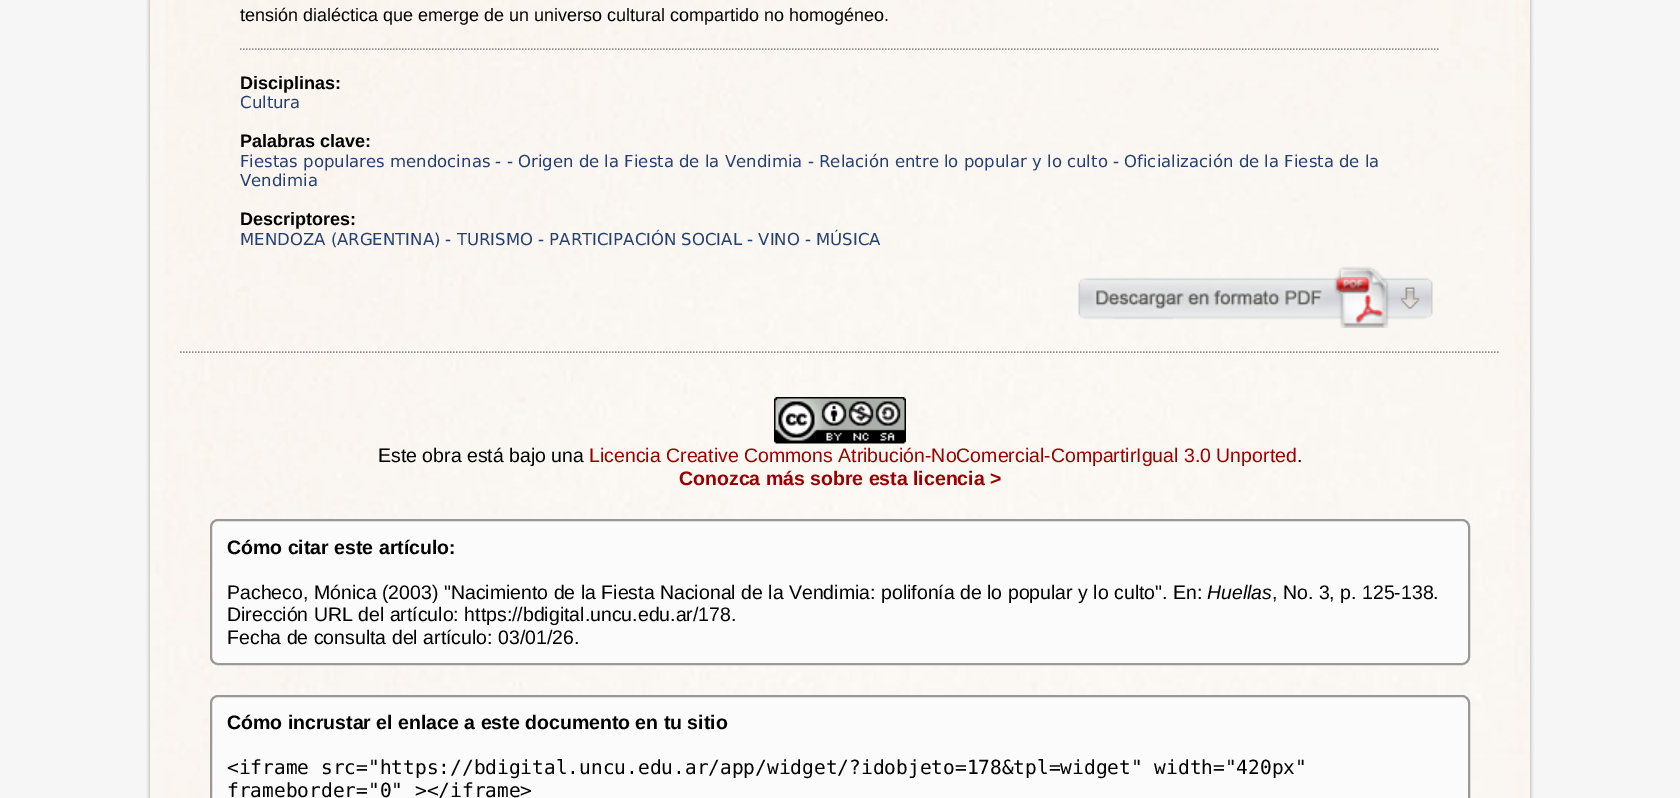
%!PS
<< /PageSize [1680 798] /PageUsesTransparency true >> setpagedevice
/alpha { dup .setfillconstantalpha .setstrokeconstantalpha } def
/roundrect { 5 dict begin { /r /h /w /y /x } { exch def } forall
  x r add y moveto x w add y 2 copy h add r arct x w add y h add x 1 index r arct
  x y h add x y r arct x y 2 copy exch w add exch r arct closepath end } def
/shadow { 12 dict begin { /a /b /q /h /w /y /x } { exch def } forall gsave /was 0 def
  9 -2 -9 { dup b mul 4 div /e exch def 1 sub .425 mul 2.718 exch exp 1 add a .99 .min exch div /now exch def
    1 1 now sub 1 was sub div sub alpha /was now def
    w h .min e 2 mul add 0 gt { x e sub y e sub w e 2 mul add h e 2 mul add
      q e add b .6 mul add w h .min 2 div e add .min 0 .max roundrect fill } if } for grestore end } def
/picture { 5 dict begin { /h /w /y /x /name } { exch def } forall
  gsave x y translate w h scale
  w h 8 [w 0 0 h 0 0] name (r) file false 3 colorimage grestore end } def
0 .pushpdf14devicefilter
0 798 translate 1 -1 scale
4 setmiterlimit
0.965 setgray
0 0 1680 798 rectfill
0.6 setgray
150 -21 1380 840 15 2 1 shadow
(img1.rgb) 150 0 1380 798 picture
/LiberationSans-Regular [18 0 0 -18 0 0] selectfont
0 setgray
240 21 moveto (tensión dialéctica que emerge de un universo cultural compartido no homogéneo.) show
0.557 setgray
1.5 setlinewidth
[1.5 1.5] 0 setdash
newpath 240 49 moveto 1440 49 lineto stroke
/LiberationSans-Bold [18 0 0 -18 0 0] selectfont
0 setgray
240 89 moveto (Disciplinas:) show
/DejaVuSans-Regular [16.5 0 0 -16.5 0 0] selectfont
0.141 0.247 0.443 setrgbcolor
240 108 moveto (Cultura) show
/LiberationSans-Bold [18 0 0 -18 0 0] selectfont
0 setgray
240 147 moveto (Palabras clave:) show
/DejaVuSans-Regular [16.5 0 0 -16.5 0 0] selectfont
0.141 0.247 0.443 setrgbcolor
240 167 moveto (Fiestas populares mendocinas - - Origen de la Fiesta de la Vendimia - Relación entre lo popular y lo culto - Oficialización de la Fiesta de la) show
240 186 moveto (Vendimia) show
/LiberationSans-Bold [18 0 0 -18 0 0] selectfont
0 setgray
240 225 moveto (Descriptores:) show
/DejaVuSans-Regular [16.5 0 0 -16.5 0 0] selectfont
0.141 0.247 0.443 setrgbcolor
240 245 moveto (MENDOZA \(ARGENTINA\) - TURISMO - PARTICIPACIÓN SOCIAL - VINO - MÚSICA) show
(img2.rgb) 1078 266 355 62 picture
0.557 setgray
newpath 180 352 moveto 1500 352 lineto stroke
(img3.rgb) 774 397 132 47 picture
/LiberationSans-Regular [19.5 0 0 -19.5 0 0] selectfont
0 setgray
378 462 moveto (Este obra está bajo una) show
0.6 0 0 setrgbcolor
589 462 moveto (Licencia Creative Commons Atribución-NoComercial-CompartirIgual 3.0 Unported) show
0 setgray
1297 462 moveto (.) show
/LiberationSans-Bold [19.5 0 0 -19.5 0 0] selectfont
0.6 0 0 setrgbcolor
679 485 moveto (Conozca más sobre esta licencia >) show
0.984 setgray
211 520 1258 144 7 roundrect gsave fill grestore
0.6 setgray
2 setlinewidth
[] 0 setdash
stroke
0 setgray
227 554 moveto (Cómo citar este artículo:) show
/LiberationSans-Regular [19.5 0 0 -19.5 0 0] selectfont
227 599 moveto (Pacheco, Mónica \(2003\) "Nacimiento de la Fiesta Nacional de la Vendimia: polifonía de lo popular y lo culto". En:) show
/LiberationSans-Italic [19.5 0 0 -19.5 0 0] selectfont
1207 599 moveto (Huellas) show
/LiberationSans-Regular [19.5 0 0 -19.5 0 0] selectfont
1272 599 moveto (, No. 3, p. 125-138.) show
227 621 moveto (Dirección URL del artículo: https://bdigital.uncu.edu.ar/178.) show
227 644 moveto (Fecha de consulta del artículo: 03/01/26.) show
0.984 setgray
211 696 1258 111 7 roundrect gsave fill grestore
0.6 setgray
stroke
/LiberationSans-Bold [19.5 0 0 -19.5 0 0] selectfont
0 setgray
227 729 moveto (Cómo incrustar el enlace a este documento en tu sitio) show
/DejaVuSansMono-Regular [19.5 0 0 -19.5 0 0] selectfont
227 774 moveto (<iframe src="https://bdigital.uncu.edu.ar/app/widget/?idobjeto=178&tpl=widget" width="420px") show
227 797 moveto (frameborder="0" ></iframe>) show
.poppdf14devicefilter showpage
